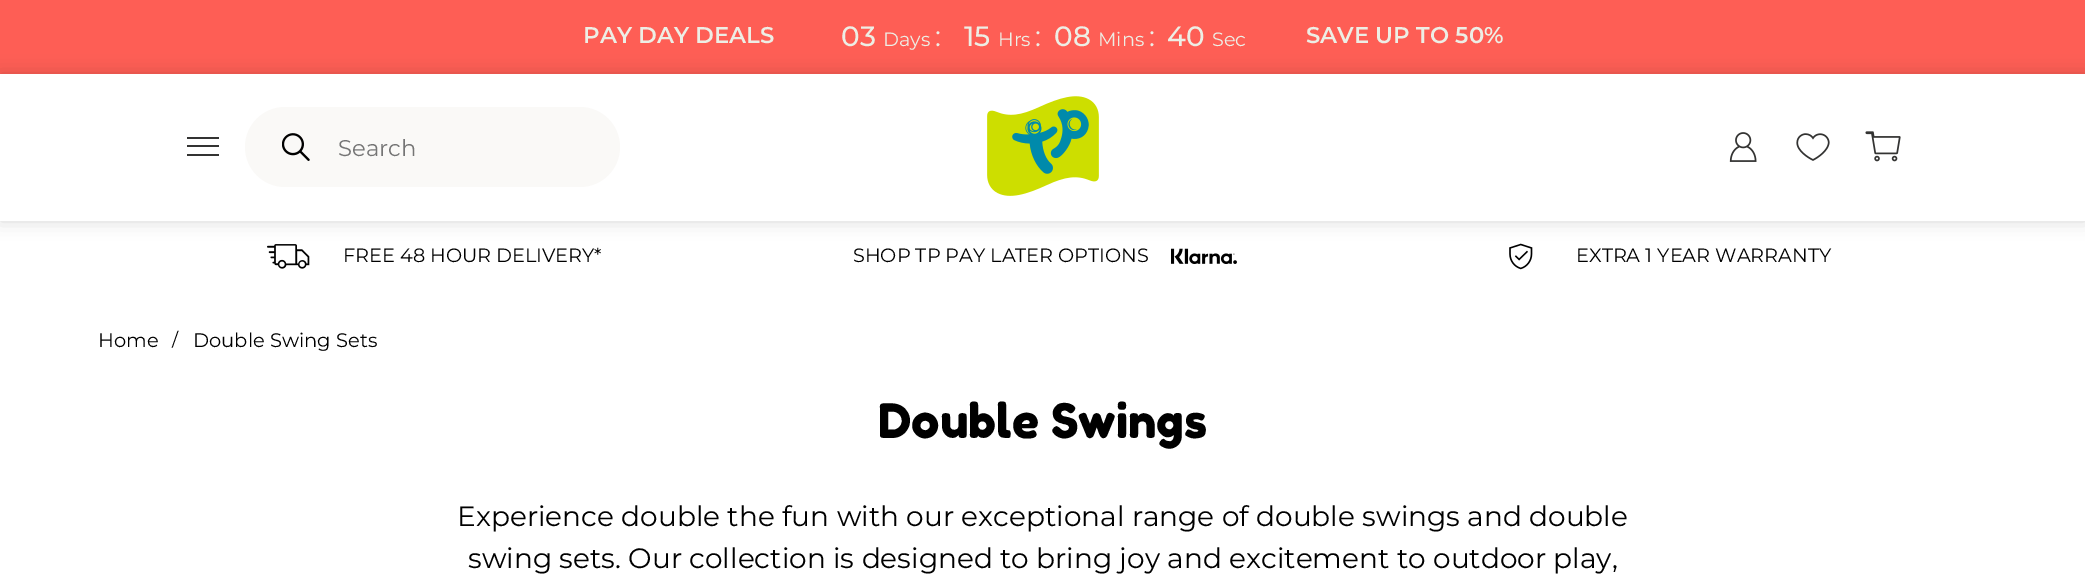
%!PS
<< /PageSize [2085 583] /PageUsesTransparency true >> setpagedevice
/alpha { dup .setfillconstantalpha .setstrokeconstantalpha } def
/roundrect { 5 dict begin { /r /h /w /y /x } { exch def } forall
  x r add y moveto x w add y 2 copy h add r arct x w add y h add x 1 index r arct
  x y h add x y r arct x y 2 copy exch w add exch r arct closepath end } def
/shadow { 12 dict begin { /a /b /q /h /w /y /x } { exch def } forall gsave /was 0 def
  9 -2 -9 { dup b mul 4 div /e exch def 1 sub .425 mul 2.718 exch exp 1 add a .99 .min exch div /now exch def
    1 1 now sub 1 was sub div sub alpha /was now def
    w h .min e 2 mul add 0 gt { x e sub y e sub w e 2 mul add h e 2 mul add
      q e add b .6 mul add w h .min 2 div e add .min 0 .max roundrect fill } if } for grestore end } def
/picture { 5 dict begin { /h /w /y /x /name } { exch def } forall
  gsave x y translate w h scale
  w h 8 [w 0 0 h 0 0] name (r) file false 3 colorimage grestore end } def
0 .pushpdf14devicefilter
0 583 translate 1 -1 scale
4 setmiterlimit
1 setgray
0 0 2085 583 rectfill
0.996 0.369 0.333 setrgbcolor
0 0 2085 74 rectfill
/Montserrat-SemiBold [22.75 0 0 -22.75 0 0] selectfont
0.929 0.933 0.898 setrgbcolor
583 43 moveto (PAY DAY DEALS) show
/Montserrat-Medium [28 0 0 -28 0 0] selectfont
841 46 moveto (03) show
/Montserrat-Regular [19.25 0 0 -19.25 0 0] selectfont
883 46 moveto (Days) show
/Montserrat-Regular [28 0 0 -28 0 0] selectfont
935 46 moveto (:) show
/Montserrat-Medium [28 0 0 -28 0 0] selectfont
964 46 moveto (15) show
/Montserrat-Regular [19.25 0 0 -19.25 0 0] selectfont
998 46 moveto (Hrs) show
/Montserrat-Regular [28 0 0 -28 0 0] selectfont
1035 46 moveto (:) show
/Montserrat-Medium [28 0 0 -28 0 0] selectfont
1054 46 moveto (08) show
/Montserrat-Regular [19.25 0 0 -19.25 0 0] selectfont
1098 46 moveto (Mins) show
/Montserrat-Regular [28 0 0 -28 0 0] selectfont
1149 46 moveto (:) show
/Montserrat-Medium [28 0 0 -28 0 0] selectfont
1167 46 moveto (40) show
/Montserrat-Regular [19.25 0 0 -19.25 0 0] selectfont
1212 46 moveto (Sec) show
/Montserrat-SemiBold [22.75 0 0 -22.75 0 0] selectfont
1306 43 moveto (SAVE UP TO 50%) show
(img6.rgb) 267 244 43 25 picture
(img7.rgb) 1171 248 66 16 picture
(img8.rgb) 1509 243 24 27 picture
0 setgray
0 74 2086 147 0 9 0.16 shadow
1 setgray
0 74 2085 147 rectfill
0.2 0.2 0.196 setrgbcolor
187 145 32 2 rectfill
187 137 32 2 rectfill
187 154 32 2 rectfill
0.98 0.976 0.969 setrgbcolor
245 107 375 80 40 roundrect fill
(img1.rgb) 282 133 28 28 picture
/Montserrat-Regular [22.75 0 0 -22.75 0 0] selectfont
0.459 setgray
338 156 moveto (Search) show
(img2.rgb) 987 96 112 100 picture
(img3.rgb) 1729 132 28 30 picture
(img4.rgb) 1796 133 34 28 picture
(img5.rgb) 1865 131 36 31 picture
/Montserrat-Regular [19.25 0 0 -19.25 0 0] selectfont
0 setgray
343 262 moveto (FREE 48 HOUR DELIVERY*) show
853 262 moveto (SHOP TP PAY LATER OPTIONS) show
1576 262 moveto (EXTRA 1 YEAR WARRANTY) show
/Montserrat-Regular [19.5 0 0 -19.5 0 0] selectfont
98 347 moveto (Home) show
/Montserrat-Regular [18 0 0 -18 0 0] selectfont
172 346 moveto (/) show
/Montserrat-Regular [19.5 0 0 -19.5 0 0] selectfont
193 347 moveto (Double Swing Sets) show
/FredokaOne-Regular [47.25 0 0 -47.25 0 0] selectfont
878 438 moveto (Double Swings) show
/Montserrat-Regular [28 0 0 -28 0 0] selectfont
457 526 moveto (Experience double the fun with our exceptional range of double swings and double) show
468 568 moveto (swing sets. Our collection is designed to bring joy and excitement to outdoor play,) show
.poppdf14devicefilter showpage
